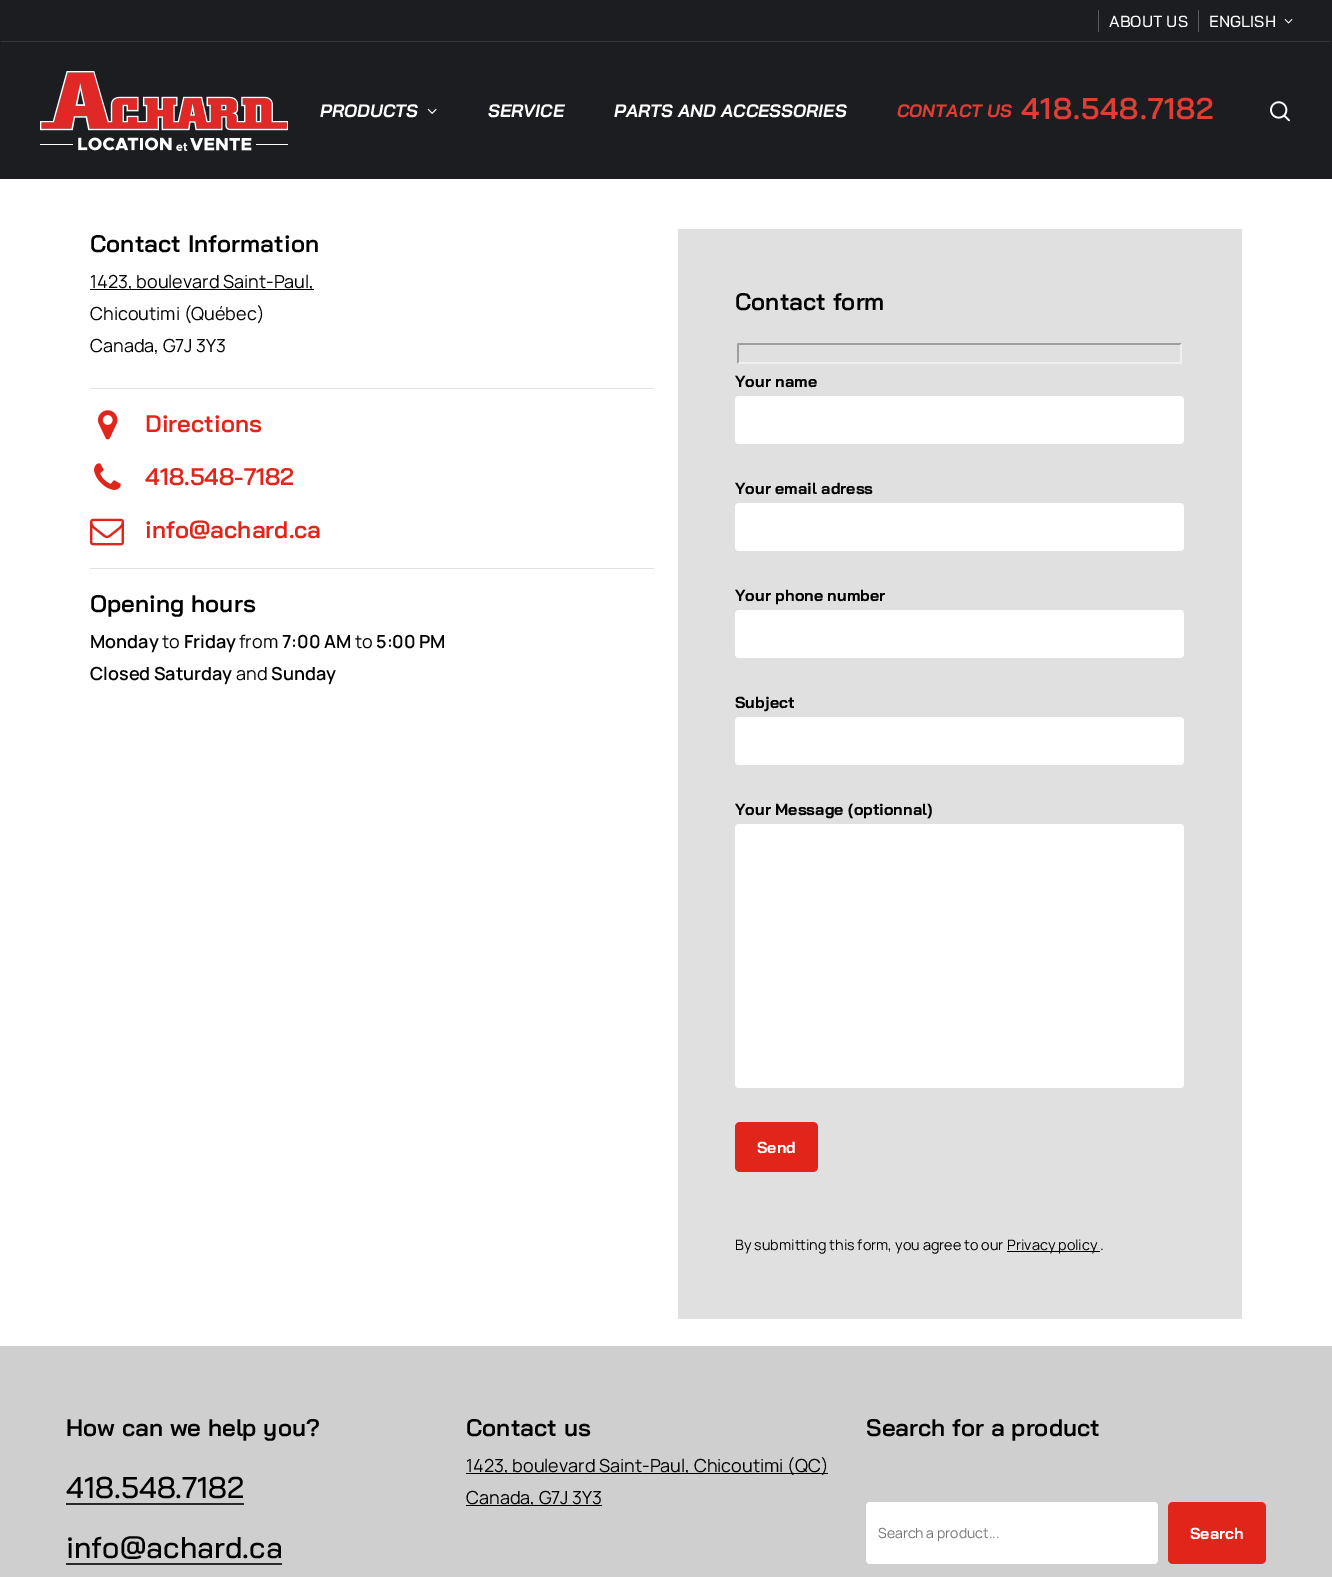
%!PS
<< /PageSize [1332 1577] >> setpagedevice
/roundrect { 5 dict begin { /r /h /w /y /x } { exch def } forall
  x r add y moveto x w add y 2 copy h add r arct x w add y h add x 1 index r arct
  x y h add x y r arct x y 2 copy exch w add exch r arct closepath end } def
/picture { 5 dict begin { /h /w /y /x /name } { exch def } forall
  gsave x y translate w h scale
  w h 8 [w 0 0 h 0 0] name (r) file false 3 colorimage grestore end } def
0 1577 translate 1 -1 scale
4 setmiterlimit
1 setgray
0 0 1332 1577 rectfill
0.106 0.114 0.129 setrgbcolor
0 0 1332 179 rectfill
0.208 setgray
1 41 1330 1 rectfill
0.353 setgray
1098 10 1 22 rectfill
/BaiJamjuree-Medium [16 0 0 -16 0 0] selectfont
1 setgray
1109 27 moveto (ABOUT US) show
0.353 setgray
1198 10 1 22 rectfill
1 setgray
1209 27 moveto (ENGLISH) show
(img1.rgb) 1284 19 9 5 picture
(img2.rgb) 40 71 248 80 picture
/BaiJamjuree-BoldItalic [18 0 0 -18 0 0] selectfont
320 117 moveto (PRODUCTS) show
(img3.rgb) 427 108 10 6 picture
488 117 moveto (SERVICE) show
614 117 moveto (PARTS AND ACCESSORIES) show
0.886 0.239 0.204 setrgbcolor
897 117 moveto (CONTACT US) show
/BaiJamjuree-SemiBold [30 0 0 -30 0 0] selectfont
1021 119 moveto 1 0 (418.548.7182) ashow
(img4.rgb) 1270 101 20 21 picture
/BaiJamjuree-SemiBold [24 0 0 -24 0 0] selectfont
0 setgray
90 252 moveto (Contact Information) show
90 289 224 1 rectfill
/Manrope-Regular [18 0 0 -18 0 0] selectfont
90 288 moveto (1423, boulevard Saint-Paul,) show
90 320 moveto (Chicoutimi \(Québec\)) show
90 352 moveto (Canada, G7J 3Y3) show
0.878 setgray
90 388 564 1 rectfill
(img5.rgb) 98 410 20 30 picture
/BaiJamjuree-SemiBold [24 0 0 -24 0 0] selectfont
0.882 0.145 0.106 setrgbcolor
145 432 moveto (Directions) show
(img6.rgb) 94 463 27 27 picture
145 485 moveto (418.548-7182) show
(img7.rgb) 90 518 34 28 picture
145 538 moveto (info@achard.ca) show
0.878 setgray
90 568 564 1 rectfill
0 setgray
90 612 moveto (Opening hours) show
/Manrope-SemiBold [18 0 0 -18 0 0] selectfont
90 648 moveto (Monday) show
/Manrope-Regular [18 0 0 -18 0 0] selectfont
162 648 moveto (to) show
/Manrope-SemiBold [18 0 0 -18 0 0] selectfont
184 648 moveto (Friday) show
/Manrope-Regular [18 0 0 -18 0 0] selectfont
239 648 moveto (from) show
/Manrope-SemiBold [18 0 0 -18 0 0] selectfont
282 648 moveto (7:00 AM) show
/Manrope-Regular [18 0 0 -18 0 0] selectfont
355 648 moveto (to) show
/Manrope-SemiBold [18 0 0 -18 0 0] selectfont
376 648 moveto (5:00 PM) show
90 680 moveto (Closed Saturday) show
/Manrope-Regular [18 0 0 -18 0 0] selectfont
236 680 moveto (and) show
/Manrope-SemiBold [18 0 0 -18 0 0] selectfont
271 680 moveto (Sunday) show
0.878 setgray
678 229 564 1090 rectfill
/BaiJamjuree-SemiBold [24 0 0 -24 0 0] selectfont
0 setgray
735 310 moveto (Contact form) show
0.624 setgray
newpath 737 343 moveto 1182 343 lineto 1180 345 lineto 739 345 lineto closepath fill
0.937 setgray
newpath 1182 343 moveto 1182 364 lineto 1180 362 lineto 1180 345 lineto closepath fill
newpath 1182 364 moveto 737 364 lineto 739 362 lineto 1180 362 lineto closepath fill
0.624 setgray
newpath 737 364 moveto 737 343 lineto 739 345 lineto 739 362 lineto closepath fill
/BaiJamjuree-Bold [16 0 0 -16 0 0] selectfont
0 setgray
735 387 moveto (Your name) show
1 setgray
735 396 449 48 4 roundrect fill
0 setgray
735 494 moveto (Your email adress) show
1 setgray
735 503 449 48 4 roundrect fill
0 setgray
735 601 moveto (Your phone number) show
1 setgray
735 610 449 48 4 roundrect fill
0 setgray
735 708 moveto (Subject) show
1 setgray
735 717 449 48 4 roundrect fill
0 setgray
735 815 moveto (Your Message \(optionnal\)) show
1 setgray
735 824 449 264 4 roundrect fill
0.882 0.145 0.106 setrgbcolor
735 1122 83 50 5 roundrect fill
1 setgray
757 1153 moveto (Send) show
/Manrope-Regular [14.4 0 0 -14.4 0 0] selectfont
0 setgray
735 1250 moveto (By submitting this form, you agree to our) show
1007 1251 93 1 rectfill
1007 1250 moveto (Privacy policy .) show
0.812 setgray
0 1346 1332 231 rectfill
/BaiJamjuree-SemiBold [24 0 0 -24 0 0] selectfont
0 setgray
66 1436 moveto (How can we help you?) show
/BaiJamjuree-Medium [30 0 0 -30 0 0] selectfont
66 1498 moveto (418.548.7182) show
0.161 setgray
66 1503 178 2 rectfill
0 setgray
66 1558 moveto (info@achard.ca) show
0.161 setgray
66 1563 216 2 rectfill
/BaiJamjuree-SemiBold [24 0 0 -24 0 0] selectfont
0 setgray
466 1436 moveto (Contact us) show
466 1473 362 1 rectfill
/Manrope-Regular [18 0 0 -18 0 0] selectfont
466 1472 moveto (1423, boulevard Saint-Paul, Chicoutimi \(QC\)) show
466 1505 136 1 rectfill
466 1504 moveto (Canada, G7J 3Y3) show
/BaiJamjuree-SemiBold [24 0 0 -24 0 0] selectfont
866 1436 moveto (Search for a product) show
1 setgray
866 1502 292 62 4 roundrect fill
/Manrope-Regular [14 0 0 -14 0 0] selectfont
0.459 setgray
878 1538 moveto (Search a product...) show
0.882 0.145 0.106 setrgbcolor
1168 1502 98 62 5 roundrect fill
/BaiJamjuree-Bold [16 0 0 -16 0 0] selectfont
1 setgray
1190 1539 moveto (Search) show
showpage
